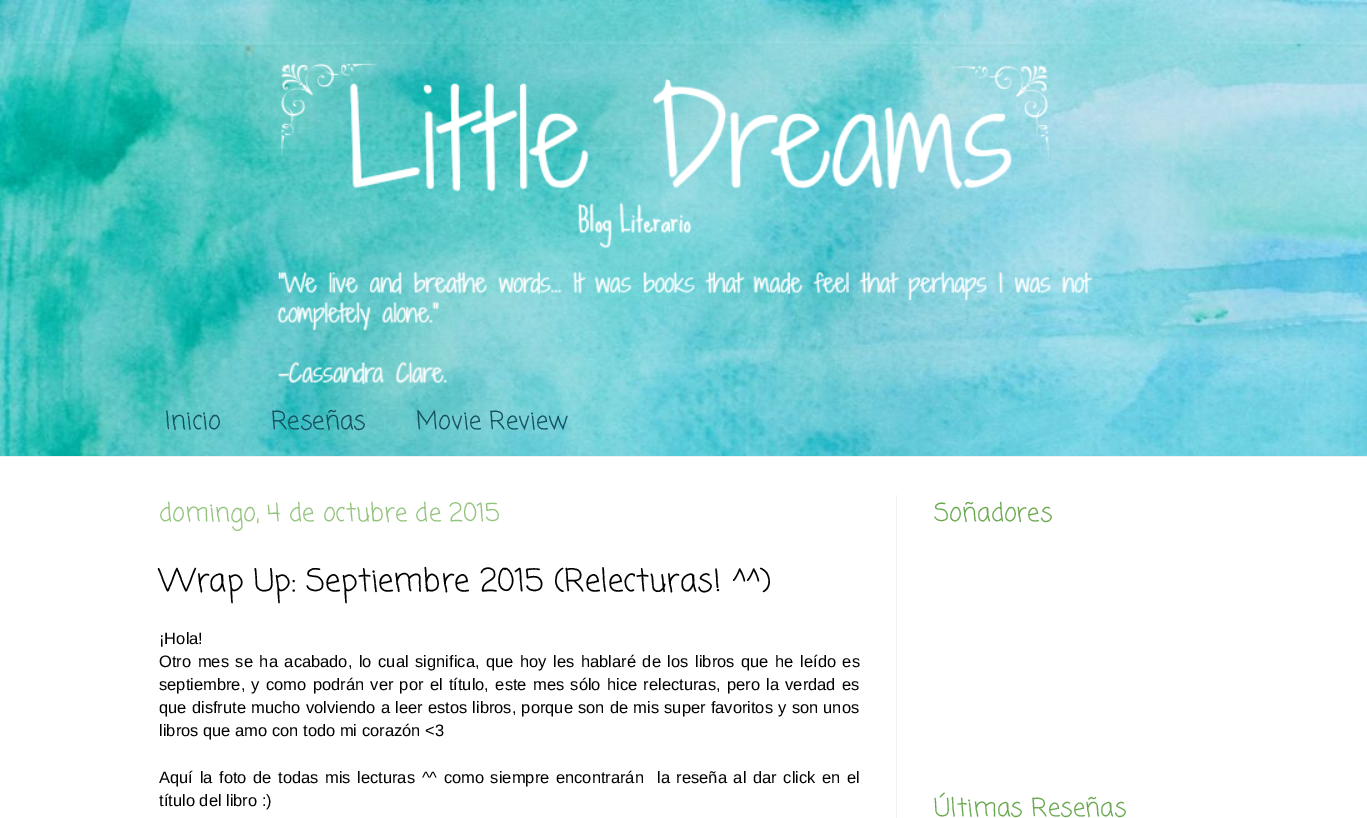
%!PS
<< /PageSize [1367 818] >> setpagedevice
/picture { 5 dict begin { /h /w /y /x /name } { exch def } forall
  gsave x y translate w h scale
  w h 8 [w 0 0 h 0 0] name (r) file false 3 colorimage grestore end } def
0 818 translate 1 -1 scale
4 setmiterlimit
1 setgray
0 0 1367 818 rectfill
(img1.rgb) 0 0 1367 456 picture
(img2.rgb) 277 63 816 322 picture
/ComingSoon-Regular [25 0 0 -25 0 0] selectfont
0.075 0.31 0.361 setrgbcolor
165 429 moveto (Inicio) show
271 429 moveto (Reseñas) show
416 429 moveto (Movie Review) show
0.945 setgray
0 456 1367 1 rectfill
896 495 1 323 rectfill
0.576 0.769 0.49 setrgbcolor
159 521 moveto (domingo, 4 de octubre de 2015) show
/ComingSoon-Regular [31.25 0 0 -31.25 0 0] selectfont
0 setgray
159 591 moveto (Wrap Up: Septiembre 2015 \(Relecturas! ^^\)) show
/LiberationSans-Regular [16.5 0 0 -16.5 0 0] selectfont
159 644 moveto (¡Hola!) show
159 667 moveto 2 0 32 (Otro mes se ha acabado, lo cual significa, que hoy les hablaré de los libros que he leído es) widthshow
159 690 moveto 1.7 0 32 (septiembre, y como podrán ver por el título, este mes sólo hice relecturas, pero la verdad es) widthshow
159 713 moveto 0.6 0 32 (que disfrute mucho volviendo a leer estos libros, porque son de mis super favoritos y son unos) widthshow
159 736 moveto (libros que amo con todo mi corazón <3) show
159 783 moveto 2 0 32 (Aquí la foto de todas mis lecturas ^^ como siempre encontrarán  la reseña al dar click en el) widthshow
159 806 moveto (título del libro :\)) show
/ComingSoon-Regular [25 0 0 -25 0 0] selectfont
0.416 0.659 0.31 setrgbcolor
934 521 moveto (Soñadores) show
934 816 moveto (Últimas Reseñas) show
showpage
